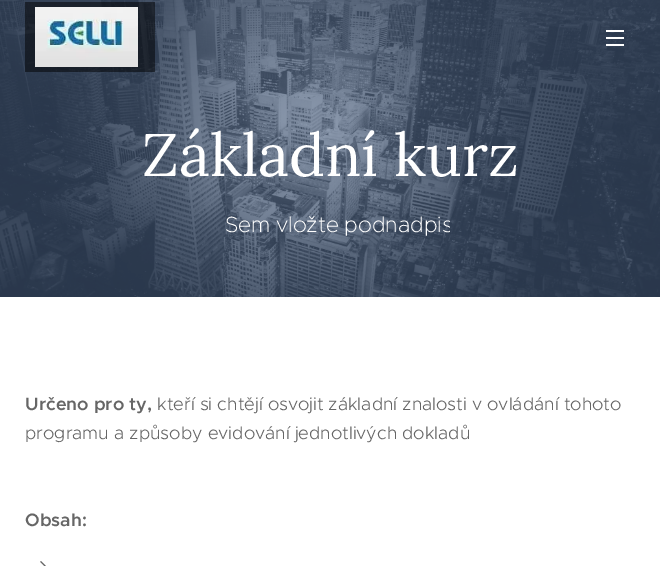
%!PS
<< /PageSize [660 566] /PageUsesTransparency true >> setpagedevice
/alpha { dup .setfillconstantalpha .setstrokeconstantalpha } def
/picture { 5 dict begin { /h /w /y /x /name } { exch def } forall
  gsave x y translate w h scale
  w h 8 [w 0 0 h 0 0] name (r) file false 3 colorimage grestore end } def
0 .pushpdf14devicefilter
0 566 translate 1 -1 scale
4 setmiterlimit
1 setgray
0 0 660 566 rectfill
(img2.rgb) 0 0 660 297 picture
0.5 alpha
0 setgray
25 2 130 70 rectfill
1 alpha
(img1.rgb) 35 7 103 60 picture
1 setgray
606 37 18 2 rectfill
606 30 18 2 rectfill
606 44 18 2 rectfill
/Lora-Regular [60 0 0 -60 0 0] selectfont
142 176 moveto (Základní kurz) show
gsave
210 204 240 43 rectclip
/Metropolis-ExtraLight [22 0 0 -22 0 0] selectfont
225 232 moveto -1 0 32 (Sem vložte podnadpis) widthshow
grestore
/Metropolis-SemiBold [18 0 0 -18 0 0] selectfont
0.4 setgray
25 410 moveto (Určeno pro ty,) show
/Metropolis-Light [18 0 0 -18 0 0] selectfont
157 410 moveto (kteří si chtějí osvojit základní znalosti v ovládání tohoto) show
25 439 moveto (programu a způsoby evidování jednotlivých dokladů) show
/Metropolis-SemiBold [18 0 0 -18 0 0] selectfont
25 526 moveto (Obsah:) show
(img3.rgb) 40 561 6 5 picture
.poppdf14devicefilter showpage
